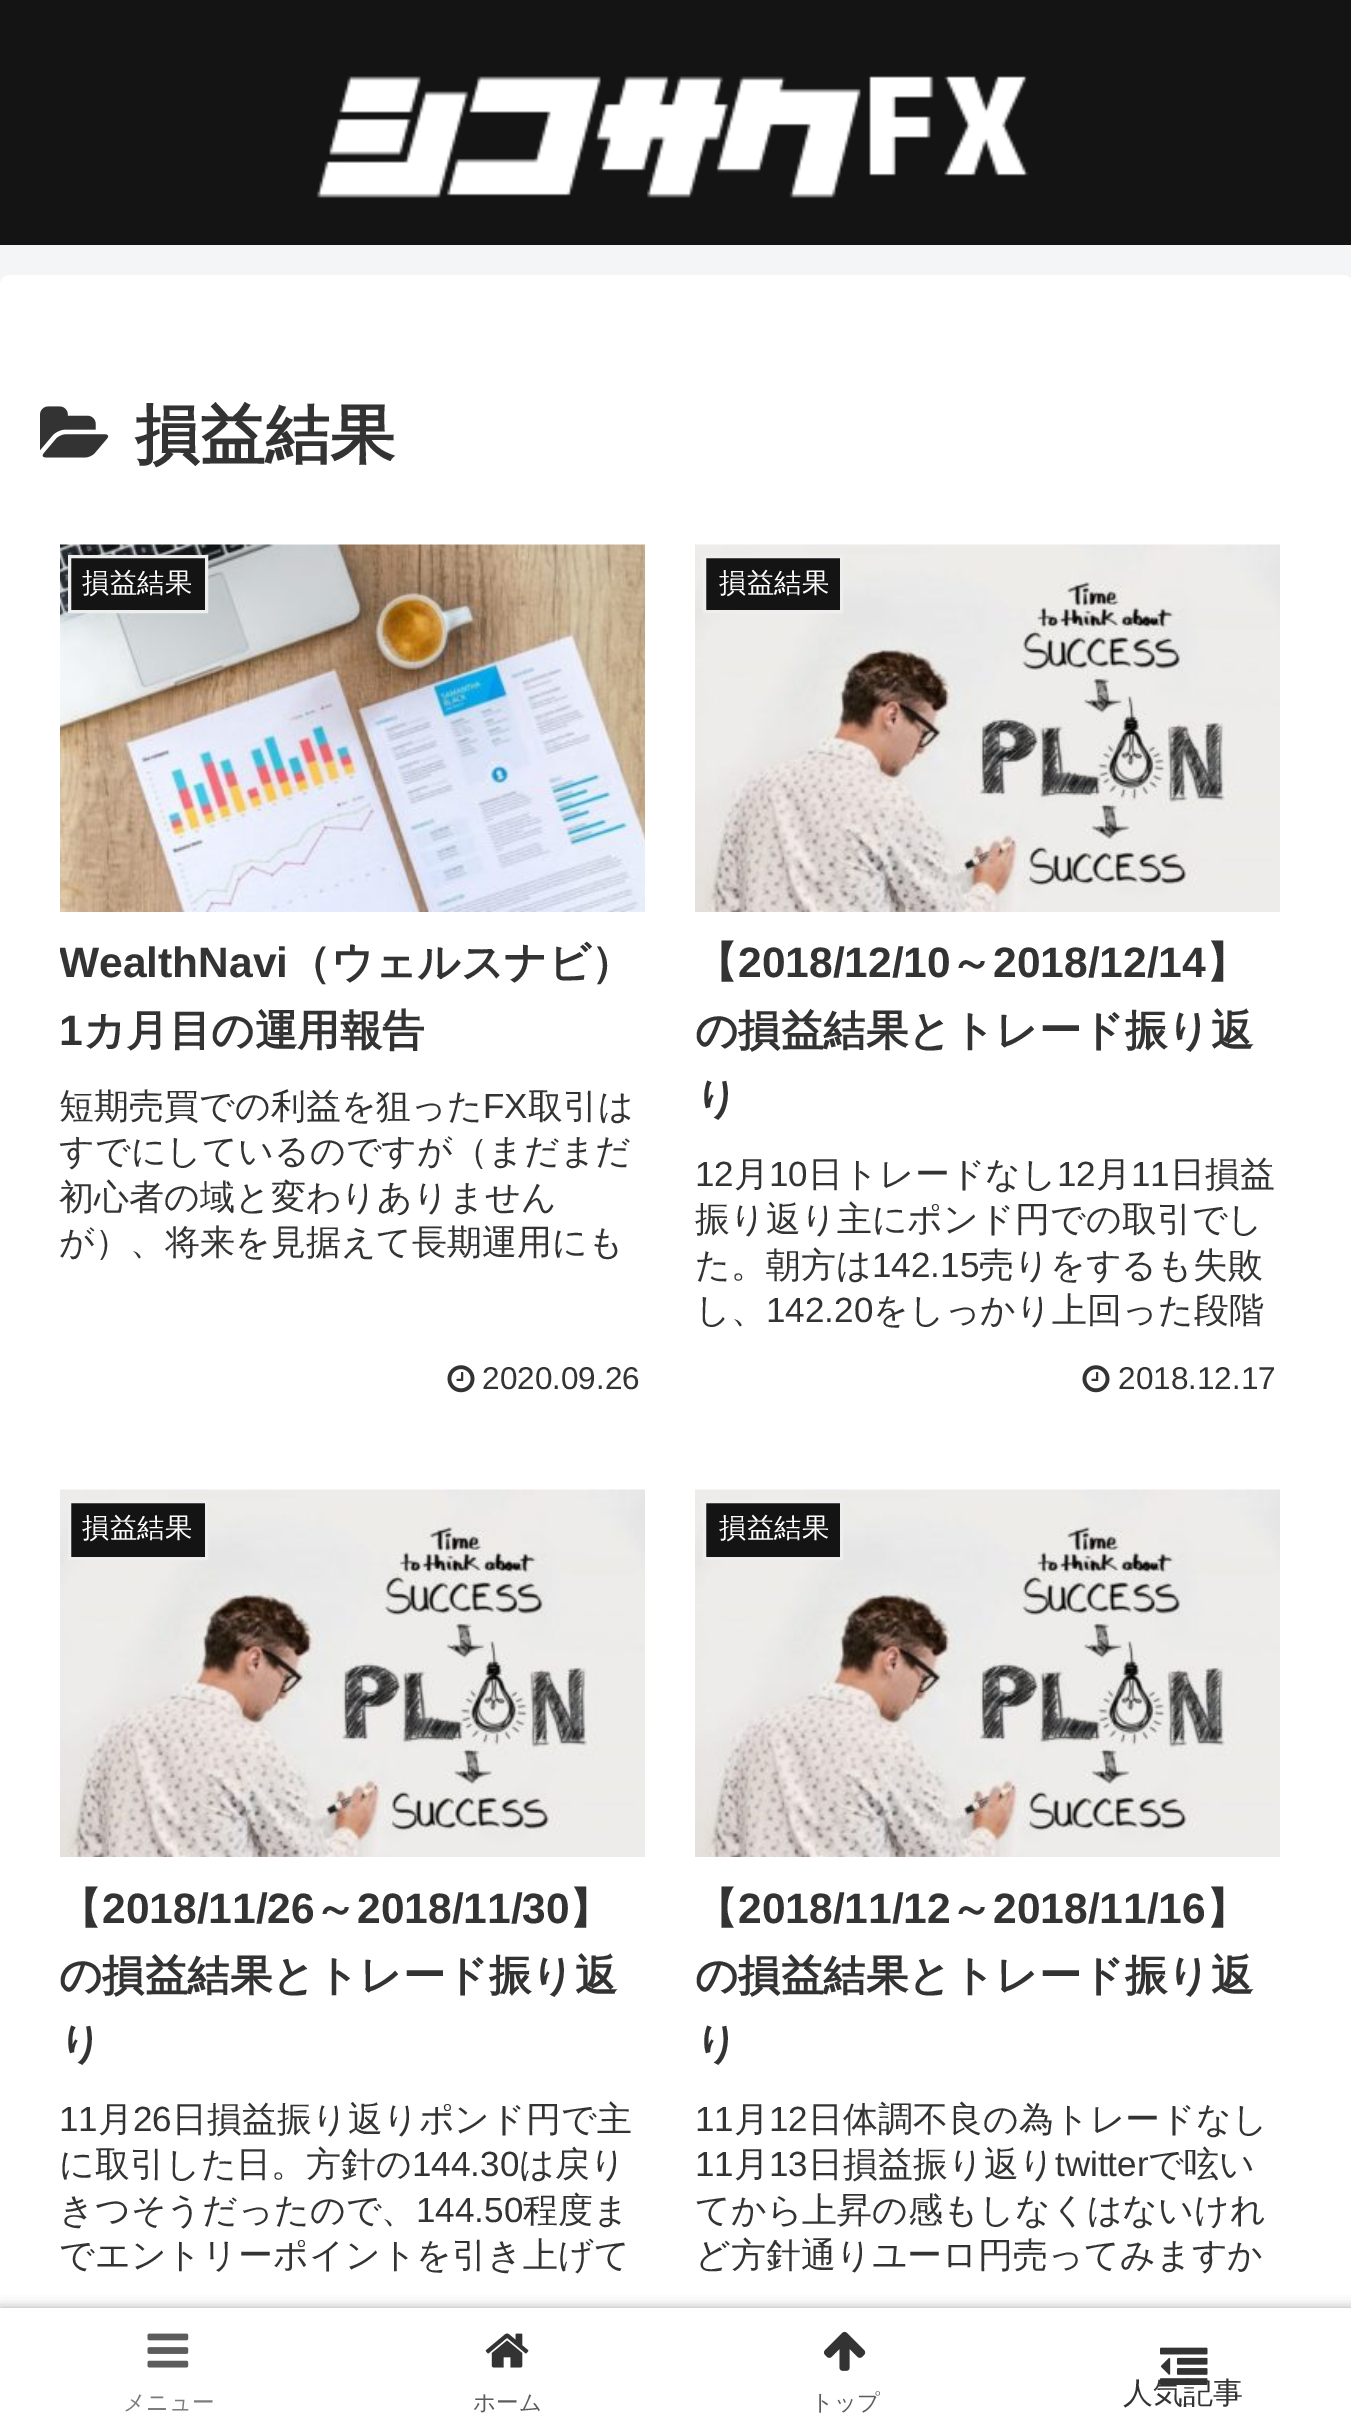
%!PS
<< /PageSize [1351 2431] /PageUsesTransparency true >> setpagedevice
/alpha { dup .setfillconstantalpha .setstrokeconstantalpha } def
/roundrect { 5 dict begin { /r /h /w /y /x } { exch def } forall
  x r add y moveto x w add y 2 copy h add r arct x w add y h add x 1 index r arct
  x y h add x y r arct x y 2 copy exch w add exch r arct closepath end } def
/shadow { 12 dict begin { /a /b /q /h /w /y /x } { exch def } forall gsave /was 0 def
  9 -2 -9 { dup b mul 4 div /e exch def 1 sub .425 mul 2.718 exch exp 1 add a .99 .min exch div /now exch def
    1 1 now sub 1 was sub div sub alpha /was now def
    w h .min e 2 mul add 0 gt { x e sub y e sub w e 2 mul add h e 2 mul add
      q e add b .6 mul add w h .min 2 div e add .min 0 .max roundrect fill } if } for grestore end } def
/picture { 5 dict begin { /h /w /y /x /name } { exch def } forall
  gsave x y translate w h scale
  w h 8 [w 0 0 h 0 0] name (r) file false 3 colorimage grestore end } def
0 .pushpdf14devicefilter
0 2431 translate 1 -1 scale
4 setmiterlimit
0.957 0.961 0.969 setrgbcolor
0 0 1351 2431 rectfill
0.078 setgray
0 0 1351 245 rectfill
(img1.rgb) 316 76 713 122 picture
1 setgray
0 275 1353 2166 10 roundrect fill
(img2.rgb) 40 406 69 52 picture
/WenQuanYiZenHei-Bold [65 0 0 -65 0 0] selectfont
0.2 setgray
135 457 moveto (損益結果) show
(img3.rgb) 60 544 585 368 picture
0.078 setgray
newpath 69.5 556.5 moveto 206.5 556.5 lineto 206.5 611.5 lineto 69.5 611.5 lineto closepath gsave fill grestore
0.933 setgray
3 setlinewidth
stroke
/WenQuanYiZenHei-Medium [27.5 0 0 -27.5 0 0] selectfont
1 setgray
82 592 moveto (損益結果) show
gsave
60 930 585 135 rectclip
/LiberationSans-Bold [42.5 0 0 -42.5 0 0] selectfont
0.2 setgray
59 977 moveto (WealthNavi) show
grestore
/WenQuanYiZenHei-Bold [42.5 0 0 -42.5 0 0] selectfont
0.2 setgray
288 977 moveto (（ウェルスナビ）) show
/LiberationSans-Bold [42.5 0 0 -42.5 0 0] selectfont
59 1045 moveto (1) show
/WenQuanYiZenHei-Bold [42.5 0 0 -42.5 0 0] selectfont
83 1045 moveto (カ月目の運用報告) show
/WenQuanYiZenHei-Medium [35 0 0 -35 0 0] selectfont
59 1118 moveto (短期売買での利益を狙った) show
/LiberationSans-Regular [35 0 0 -35 0 0] selectfont
483 1118 moveto (FX) show
/WenQuanYiZenHei-Medium [35 0 0 -35 0 0] selectfont
528 1118 moveto (取引は) show
59 1163 moveto (すでにしているのですが（まだまだ) show
59 1209 moveto (初心者の域と変わりありません) show
59 1254 moveto (が）、将来を見据えて長期運用にも) show
(img4.rgb) 447 1365 28 28 picture
/LiberationSans-Regular [31.5 0 0 -31.5 0 0] selectfont
482 1389 moveto (2020.09.26) show
(img5.rgb) 695 544 585 368 picture
0.078 setgray
newpath 704.5 556.5 moveto 841.5 556.5 lineto 841.5 611.5 lineto 704.5 611.5 lineto closepath gsave fill grestore
0.933 setgray
stroke
/WenQuanYiZenHei-Medium [27.5 0 0 -27.5 0 0] selectfont
1 setgray
719 592 moveto (損益結果) show
/WenQuanYiZenHei-Bold [42.5 0 0 -42.5 0 0] selectfont
0.2 setgray
695 977 moveto (【) show
/LiberationSans-Bold [42.5 0 0 -42.5 0 0] selectfont
738 977 moveto (2018/12/10) show
/WenQuanYiZenHei-Bold [42.5 0 0 -42.5 0 0] selectfont
950 977 moveto (～) show
/LiberationSans-Bold [42.5 0 0 -42.5 0 0] selectfont
993 977 moveto (2018/12/14) show
/WenQuanYiZenHei-Bold [42.5 0 0 -42.5 0 0] selectfont
1206 977 moveto (】) show
695 1045 moveto (の損益結果とトレード振り返) show
695 1113 moveto (り) show
/LiberationSans-Regular [35 0 0 -35 0 0] selectfont
695 1186 moveto (12) show
/WenQuanYiZenHei-Medium [35 0 0 -35 0 0] selectfont
734 1186 moveto (月) show
/LiberationSans-Regular [35 0 0 -35 0 0] selectfont
769 1186 moveto (10) show
/WenQuanYiZenHei-Medium [35 0 0 -35 0 0] selectfont
808 1186 moveto (日トレードなし) show
/LiberationSans-Regular [35 0 0 -35 0 0] selectfont
1057 1186 moveto (12) show
/WenQuanYiZenHei-Medium [35 0 0 -35 0 0] selectfont
1096 1186 moveto (月) show
/LiberationSans-Regular [35 0 0 -35 0 0] selectfont
1131 1186 moveto (11) show
/WenQuanYiZenHei-Medium [35 0 0 -35 0 0] selectfont
1170 1186 moveto (日損益) show
695 1231 moveto (振り返り主にポンド円での取引でし) show
695 1277 moveto (た。朝方は) show
/LiberationSans-Regular [35 0 0 -35 0 0] selectfont
872 1277 moveto (142.15) show
/WenQuanYiZenHei-Medium [35 0 0 -35 0 0] selectfont
979 1277 moveto (売りをするも失敗) show
695 1322 moveto (し、) show
/LiberationSans-Regular [35 0 0 -35 0 0] selectfont
766 1322 moveto (142.20) show
/WenQuanYiZenHei-Medium [35 0 0 -35 0 0] selectfont
873 1322 moveto (をしっかり上回った段階) show
(img4.rgb) 1082 1365 28 28 picture
/LiberationSans-Regular [31.5 0 0 -31.5 0 0] selectfont
1118 1389 moveto (2018.12.17) show
(img6.rgb) 60 1489 585 368 picture
0.078 setgray
newpath 69.5 1501.5 moveto 206.5 1501.5 lineto 206.5 1558.5 lineto 69.5 1558.5 lineto closepath gsave fill grestore
0.933 setgray
stroke
/WenQuanYiZenHei-Medium [27.5 0 0 -27.5 0 0] selectfont
1 setgray
82 1537 moveto (損益結果) show
/WenQuanYiZenHei-Bold [42.5 0 0 -42.5 0 0] selectfont
0.2 setgray
59 1923 moveto (【) show
/LiberationSans-Bold [42.5 0 0 -42.5 0 0] selectfont
102 1923 moveto (2018/11/26) show
/WenQuanYiZenHei-Bold [42.5 0 0 -42.5 0 0] selectfont
314 1923 moveto (～) show
/LiberationSans-Bold [42.5 0 0 -42.5 0 0] selectfont
357 1923 moveto (2018/11/30) show
/WenQuanYiZenHei-Bold [42.5 0 0 -42.5 0 0] selectfont
569 1923 moveto (】) show
59 1990 moveto (の損益結果とトレード振り返) show
59 2058 moveto (り) show
/LiberationSans-Regular [35 0 0 -35 0 0] selectfont
59 2131 moveto (11) show
/WenQuanYiZenHei-Medium [35 0 0 -35 0 0] selectfont
98 2131 moveto (月) show
/LiberationSans-Regular [35 0 0 -35 0 0] selectfont
133 2131 moveto (26) show
/WenQuanYiZenHei-Medium [35 0 0 -35 0 0] selectfont
172 2131 moveto (日損益振り返りポンド円で主) show
59 2176 moveto (に取引した日。方針の) show
/LiberationSans-Regular [35 0 0 -35 0 0] selectfont
412 2176 moveto (144.30) show
/WenQuanYiZenHei-Medium [35 0 0 -35 0 0] selectfont
519 2176 moveto (は戻り) show
59 2222 moveto (きつそうだったので、) show
/LiberationSans-Regular [35 0 0 -35 0 0] selectfont
416 2222 moveto (144.50) show
/WenQuanYiZenHei-Medium [35 0 0 -35 0 0] selectfont
523 2222 moveto (程度ま) show
59 2267 moveto (でエントリーポイントを引き上げて) show
(img5.rgb) 695 1489 585 368 picture
0.078 setgray
newpath 704.5 1501.5 moveto 841.5 1501.5 lineto 841.5 1558.5 lineto 704.5 1558.5 lineto closepath gsave fill grestore
0.933 setgray
stroke
/WenQuanYiZenHei-Medium [27.5 0 0 -27.5 0 0] selectfont
1 setgray
719 1537 moveto (損益結果) show
/WenQuanYiZenHei-Bold [42.5 0 0 -42.5 0 0] selectfont
0.2 setgray
695 1923 moveto (【) show
/LiberationSans-Bold [42.5 0 0 -42.5 0 0] selectfont
738 1923 moveto (2018/11/12) show
/WenQuanYiZenHei-Bold [42.5 0 0 -42.5 0 0] selectfont
950 1923 moveto (～) show
/LiberationSans-Bold [42.5 0 0 -42.5 0 0] selectfont
993 1923 moveto (2018/11/16) show
/WenQuanYiZenHei-Bold [42.5 0 0 -42.5 0 0] selectfont
1206 1923 moveto (】) show
695 1990 moveto (の損益結果とトレード振り返) show
695 2058 moveto (り) show
/LiberationSans-Regular [35 0 0 -35 0 0] selectfont
695 2131 moveto (11) show
/WenQuanYiZenHei-Medium [35 0 0 -35 0 0] selectfont
734 2131 moveto (月) show
/LiberationSans-Regular [35 0 0 -35 0 0] selectfont
769 2131 moveto (12) show
/WenQuanYiZenHei-Medium [35 0 0 -35 0 0] selectfont
808 2131 moveto (日体調不良の為トレードなし) show
/LiberationSans-Regular [35 0 0 -35 0 0] selectfont
695 2176 moveto (11) show
/WenQuanYiZenHei-Medium [35 0 0 -35 0 0] selectfont
734 2176 moveto (月) show
/LiberationSans-Regular [35 0 0 -35 0 0] selectfont
769 2176 moveto (13) show
/WenQuanYiZenHei-Medium [35 0 0 -35 0 0] selectfont
808 2176 moveto (日損益振り返り) show
/LiberationSans-Regular [35 0 0 -35 0 0] selectfont
1055 2176 moveto (twitter) show
/WenQuanYiZenHei-Medium [35 0 0 -35 0 0] selectfont
1148 2176 moveto (で呟い) show
695 2222 moveto (てから上昇の感もしなくはないけれ) show
695 2267 moveto (ど方針通りユーロ円売ってみますか) show
0.663 setgray
0 2308 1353 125 0 6 1 shadow
1 setgray
0 2308 1351 123 rectfill
(img7.rgb) 147 2333 42 35 picture
/WenQuanYiZenHei-Medium [22.5 0 0 -22.5 0 0] selectfont
0.486 setgray
123 2410 moveto (メニュー) show
(img8.rgb) 485 2333 44 35 picture
0.361 setgray
473 2410 moveto (ホーム) show
(img9.rgb) 823 2331 43 40 picture
811 2410 moveto (トップ) show
(img10.rgb) 1160 2347 48 38 picture
/WenQuanYiZenHei-Medium [30 0 0 -30 0 0] selectfont
0.2 setgray
1123 2403 moveto (人気記事) show
.poppdf14devicefilter showpage
